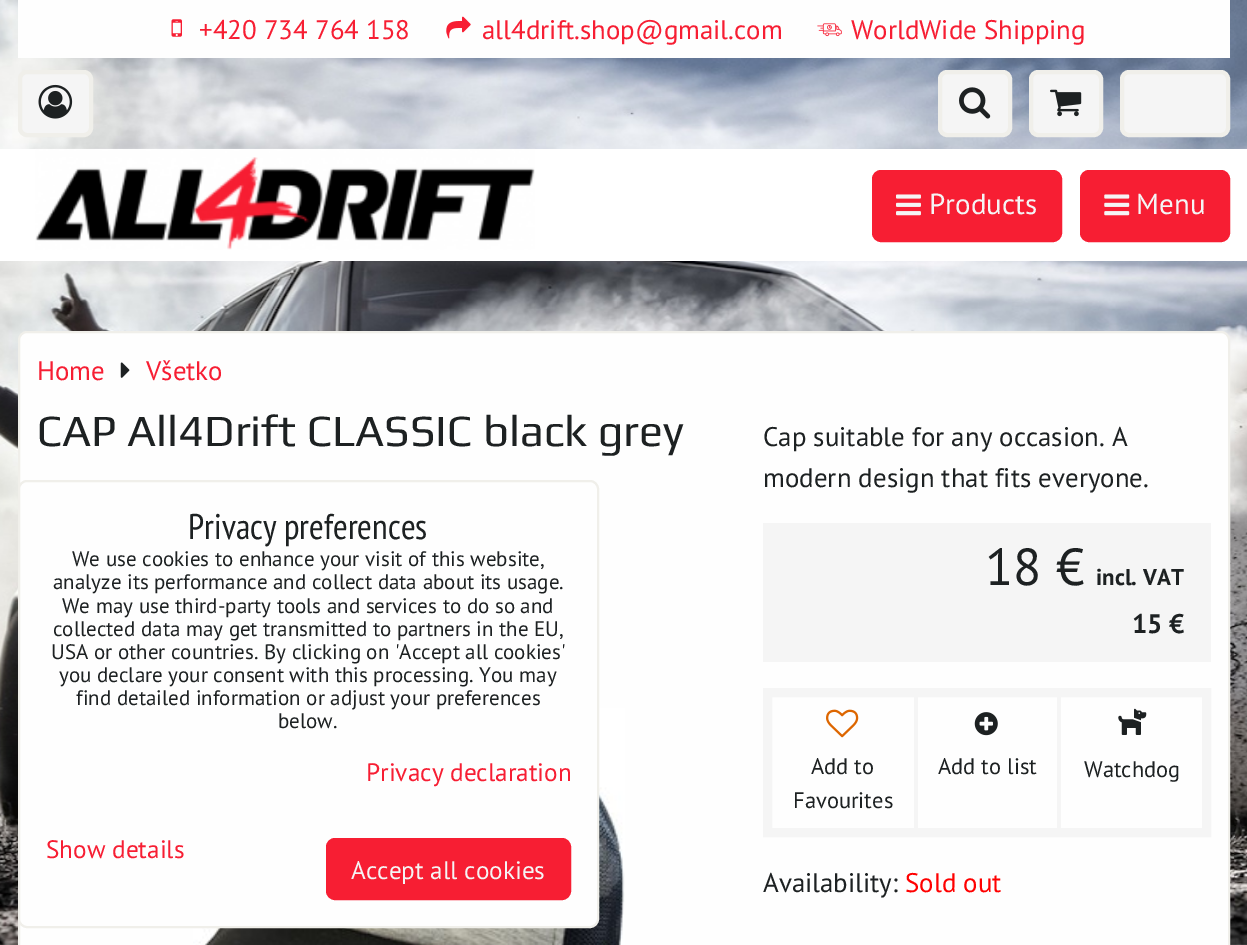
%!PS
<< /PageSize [1247 945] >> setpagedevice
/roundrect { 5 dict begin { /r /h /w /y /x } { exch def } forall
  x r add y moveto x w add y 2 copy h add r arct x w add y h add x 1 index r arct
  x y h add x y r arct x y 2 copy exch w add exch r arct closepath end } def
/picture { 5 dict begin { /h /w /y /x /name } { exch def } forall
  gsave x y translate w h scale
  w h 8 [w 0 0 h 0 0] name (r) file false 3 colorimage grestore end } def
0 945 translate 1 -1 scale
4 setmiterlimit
1 setgray
0 0 1247 945 rectfill
(img1.rgb) 0 0 1247 945 picture
0.996 setgray
18 0 1212 58 rectfill
(img2.rgb) 171 19 11 18 picture
/PTSans-Regular [26.9 0 0 -26.9 0 0] selectfont
0.969 0.118 0.2 setrgbcolor
199 39 moveto (+420 734 764 158) show
(img3.rgb) 446 16 25 23 picture
482 39 moveto (all4drift.shop@gmail.com) show
(img4.rgb) 817 23 25 14 picture
851 39 moveto (WorldWide Shipping) show
0.961 setgray
20 72 71 63 7 roundrect gsave fill grestore
0.941 0.937 0.918 setrgbcolor
4 setlinewidth
stroke
(img5.rgb) 38 84 35 35 picture
0.961 setgray
940 72 70 63 7 roundrect gsave fill grestore
0.941 0.937 0.918 setrgbcolor
stroke
(img6.rgb) 959 87 32 32 picture
0.961 setgray
1031 72 70 63 7 roundrect gsave fill grestore
0.941 0.937 0.918 setrgbcolor
stroke
(img7.rgb) 1050 89 32 28 picture
0.961 setgray
1122 72 106 63 7 roundrect gsave fill grestore
0.941 0.937 0.918 setrgbcolor
stroke
1 setgray
0 149 1247 112 rectfill
(img8.rgb) 35 148 500 102 picture
0.969 0.118 0.2 setrgbcolor
873 171 188 70 8 roundrect gsave fill grestore
2 setlinewidth
stroke
(img9.rgb) 896 194 25 22 picture
/PTSans-Regular [29 0 0 -29 0 0] selectfont
0.961 setgray
929 214 moveto (Products) show
0.969 0.118 0.2 setrgbcolor
1081 171 148 70 8 roundrect gsave fill grestore
stroke
(img10.rgb) 1104 194 26 22 picture
0.961 setgray
1136 214 moveto (Menu) show
0.996 setgray
19 332 1210 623 8 roundrect gsave fill grestore
0.941 0.937 0.918 setrgbcolor
stroke
/PTSans-Regular [26.9 0 0 -26.9 0 0] selectfont
0.969 0.118 0.2 setrgbcolor
37 380 moveto (Home) show
(img11.rgb) 120 362 10 16 picture
146 380 moveto (Všetko) show
/Play-Regular [44.75 0 0 -44.75 0 0] selectfont
0.114 0.129 0.133 setrgbcolor
37 446 moveto (CAP All4Drift CLASSIC black grey) show
(img12.rgb) 193 708 432 237 picture
/PTSans-Regular [26.9 0 0 -26.9 0 0] selectfont
763 446 moveto (Cap suitable for any occasion. A) show
763 487 moveto (modern design that fits everyone.) show
0.961 setgray
763 523 448 139 rectfill
/PTSans-Regular [52 0 0 -52 0 0] selectfont
0.114 0.129 0.133 setrgbcolor
985 585 moveto (18 €) show
/PTSans-Bold [23 0 0 -23 0 0] selectfont
1096 585 moveto (incl. VAT) show
/PTSans-Bold [26.9 0 0 -26.9 0 0] selectfont
1132 633 moveto (15 €) show
0.961 setgray
9 setlinewidth
767.5 692.5 439 140 rectstroke
(img13.rgb) 826 709 33 29 picture
/PTSans-Regular [22.5 0 0 -22.5 0 0] selectfont
0.114 0.129 0.133 setrgbcolor
811 774 moveto (Add to) show
793 808 moveto (Favourites) show
0.961 setgray
914 697 4 131 rectfill
(img14.rgb) 974 712 24 24 picture
0.114 0.129 0.133 setrgbcolor
938 774 moveto (Add to list) show
0.961 setgray
1057 697 4 131 rectfill
(img15.rgb) 1118 708 29 27 picture
0.114 0.129 0.133 setrgbcolor
1084 777 moveto (Watchdog) show
/PTSans-Regular [26.9 0 0 -26.9 0 0] selectfont
763 892 moveto (Availability:) show
1 0 0 setrgbcolor
905 892 moveto (Sold out) show
0.996 setgray
19 481 579 446 8 roundrect gsave fill grestore
0.941 0.937 0.918 setrgbcolor
2 setlinewidth
stroke
/PTSansNarrow-Regular [35.75 0 0 -35.75 0 0] selectfont
0.114 0.129 0.133 setrgbcolor
188 539 moveto (Privacy preferences) show
/PTSans-Regular [21 0 0 -21 0 0] selectfont
72 566 moveto (We use cookies to enhance your visit of this website,) show
53 589 moveto (analyze its performance and collect data about its usage.) show
62 613 moveto (We may use third-party tools and services to do so and) show
53 636 moveto (collected data may get transmitted to partners in the EU,) show
51 659 moveto (USA or other countries. By clicking on 'Accept all cookies') show
59 682 moveto (you declare your consent with this processing. You may) show
76 705 moveto (find detailed information or adjust your preferences) show
278 728 moveto (below.) show
/PTSans-Regular [25.25 0 0 -25.25 0 0] selectfont
0.969 0.118 0.2 setrgbcolor
366 781 moveto (Privacy declaration) show
46 858 moveto (Show details) show
327 839 243 60 8 roundrect gsave fill grestore
stroke
0.961 setgray
351 879 moveto (Accept all cookies) show
showpage
